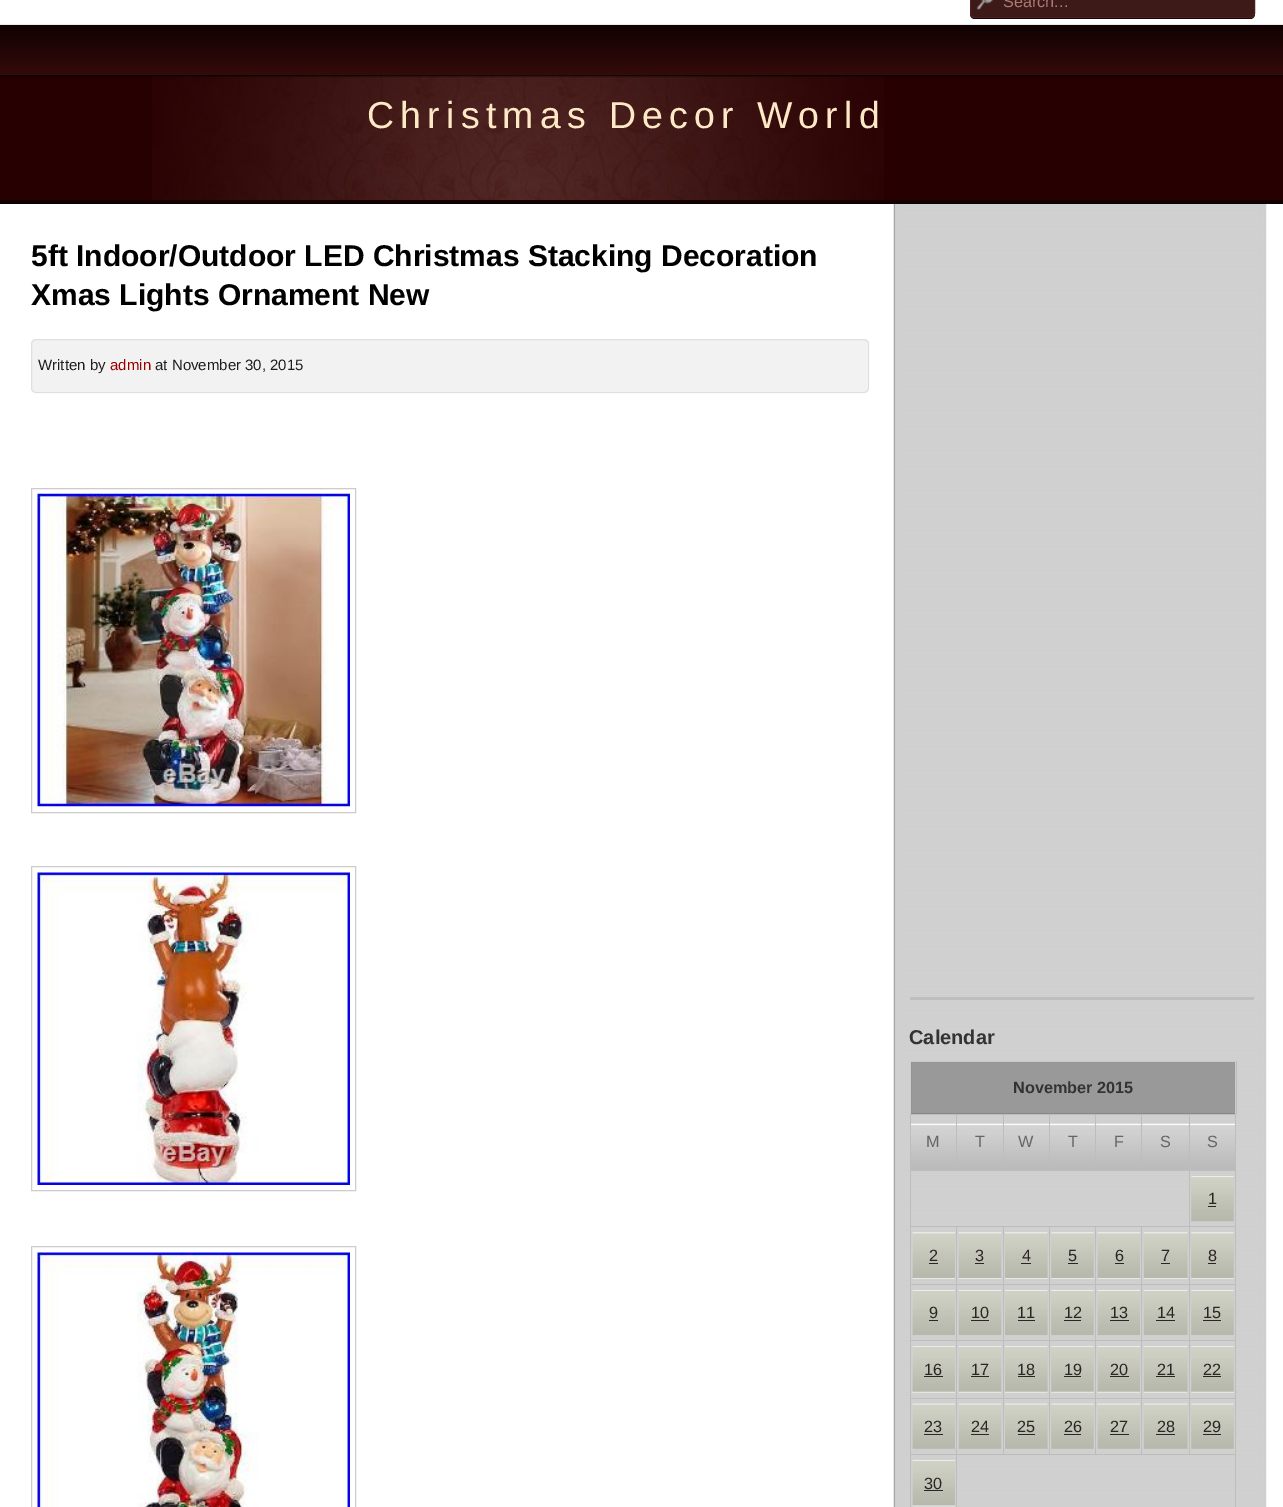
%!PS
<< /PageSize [1283 1507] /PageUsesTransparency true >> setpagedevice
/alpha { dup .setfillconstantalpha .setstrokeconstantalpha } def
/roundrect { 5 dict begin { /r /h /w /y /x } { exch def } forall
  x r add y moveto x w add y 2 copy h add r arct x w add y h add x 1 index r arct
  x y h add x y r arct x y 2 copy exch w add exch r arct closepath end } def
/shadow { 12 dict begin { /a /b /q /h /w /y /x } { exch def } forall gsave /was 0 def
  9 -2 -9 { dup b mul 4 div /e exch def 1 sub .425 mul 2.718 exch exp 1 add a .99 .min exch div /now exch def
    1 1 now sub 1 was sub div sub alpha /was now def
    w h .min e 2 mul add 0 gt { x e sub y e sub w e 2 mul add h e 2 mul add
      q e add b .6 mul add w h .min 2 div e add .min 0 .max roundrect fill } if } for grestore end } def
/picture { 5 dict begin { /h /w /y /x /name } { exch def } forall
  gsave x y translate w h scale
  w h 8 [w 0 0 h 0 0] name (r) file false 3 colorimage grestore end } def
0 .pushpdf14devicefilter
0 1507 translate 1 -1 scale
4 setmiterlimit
1 setgray
0 0 1283 1507 rectfill
0.153 0.004 0.004 setrgbcolor
0 75 1283 125 rectfill
(img2.rgb) 152 75 732 125 picture
0 setgray
0 26 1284 50 0 1 1 shadow
gsave newpath 0 25 moveto 1283 25 lineto 1283 75 lineto 0 75 lineto closepath clip newpath
<< /ShadingType 2 /ColorSpace /DeviceRGB /Coords [0 25 0 75] /Extend [true true] /Function << /FunctionType 2 /Domain [0 1] /C0 [0.059 0.008 0.004] /C1 [0.204 0.043 0.039] /N 1 >> >> shfill grestore
newpath 970 12 moveto 970 14 lineto 970 17 972 19 975 19 curveto 1250 19 lineto 1253 19 1255 17 1255 14 curveto 1255 12 lineto 1255 15 1253 18 1250 18 curveto 975 18 lineto 972 18 970 15 970 12 curveto closepath fill
0.239 0.098 0.09 setrgbcolor
970 -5 285 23 5 roundrect fill
(img1.rgb) 976 0 17 10 picture
0.302 0.129 0.122 setrgbcolor
970.5 -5.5 284 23 4.5 roundrect stroke
/LiberationSans-Regular [16.25 0 0 -16.25 0 0] selectfont
0.671 0.478 0.467 setrgbcolor
1003 7 moveto (Search...) show
0.067 0 0 setrgbcolor
0 200 1283 4 rectfill
/LiberationSans-Regular [37.5 0 0 -37.5 0 0] selectfont
1 0.91 0.776 setrgbcolor
367 128 moveto 6.25 0 (Christmas Decor World) ashow
(img3.rgb) 893 204 374 1303 picture
0.643 setgray
894 204 1 1303 rectfill
/LiberationSans-Bold [30 0 0 -30 0 0] selectfont
0 setgray
31 266 moveto (5ft Indoor/Outdoor LED Christmas Stacking Decoration) show
31 305 moveto (Xmas Lights Ornament New) show
0.949 setgray
31 339 838 54 5 roundrect fill
0.08 alpha
0 setgray
31.5 339.5 837 53 4.5 roundrect stroke
/LiberationSans-Regular [15 0 0 -15 0 0] selectfont
1 alpha
0.118 setgray
38 370 moveto (Written by) show
0.6 0 0 setrgbcolor
110 370 moveto (admin) show
0.118 setgray
155 370 moveto (at November 30, 2015) show
0.8 setgray
31.5 488.5 324 324 rectstroke
(img4.rgb) 37 493 313 314 picture
31.5 866.5 324 324 rectstroke
(img5.rgb) 37 872 313 313 picture
31.5 1246.5 324 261 rectstroke
(img6.rgb) 37 1252 313 255 picture
0.745 setgray
910 997 344 3 rectfill
/LiberationSans-Bold [20 0 0 -20 0 0] selectfont
0.2 setgray
909 1044 moveto (Calendar) show
0.6 setgray
newpath 910.5 1061.5 moveto 1235.5 1061.5 lineto 1235.5 1113.5 lineto 910.5 1113.5 lineto closepath gsave fill grestore
0.533 setgray
stroke
0.8 setgray
910 1061 326 1 rectfill
1235 1061 1 53 rectfill
910 1061 1 53 rectfill
/LiberationSans-Bold [16.25 0 0 -16.25 0 0] selectfont
0.2 setgray
1013 1093 moveto (November 2015) show
(img7.rgb) 911 1123 45 47 picture
0.745 0.737 0.737 setrgbcolor
1189 1114 47 1 rectfill
(img10.rgb) 1050 1123 47 47 picture
(img11.rgb) 1096 1123 47 47 picture
(img12.rgb) 1142 1123 47 47 picture
(img13.rgb) 1188 1123 47 47 picture
1189 1170 47 1 rectfill
1189 1226 47 1 rectfill
1189 1284 47 1 rectfill
1189 1340 47 1 rectfill
1189 1398 47 1 rectfill
956 1454 280 1 rectfill
1189 1398 1 57 rectfill
1141 1398 49 1 rectfill
1189 1340 1 59 rectfill
1141 1340 49 1 rectfill
1189 1284 1 57 rectfill
1141 1284 49 1 rectfill
1189 1226 1 59 rectfill
1141 1226 49 1 rectfill
1189 1170 1 58 rectfill
910 1170 280 1 rectfill
1189 1114 1 57 rectfill
1141 1114 49 1 rectfill
1141 1114 1 57 rectfill
1095 1114 48 1 rectfill
1095 1114 1 57 rectfill
1049 1114 47 1 rectfill
1049 1114 1 57 rectfill
1003 1114 47 1 rectfill
(img8.rgb) 957 1123 46 47 picture
(img9.rgb) 1002 1123 47 47 picture
1003 1114 1 57 rectfill
956 1114 48 1 rectfill
956 1114 1 57 rectfill
910 1114 48 1 rectfill
1141 1398 1 57 rectfill
1095 1398 48 1 rectfill
1141 1340 1 59 rectfill
1095 1340 48 1 rectfill
1141 1284 1 57 rectfill
1095 1284 48 1 rectfill
1141 1226 1 59 rectfill
1095 1226 48 1 rectfill
1095 1398 1 57 rectfill
1049 1398 47 1 rectfill
1095 1340 1 59 rectfill
1049 1340 47 1 rectfill
1095 1284 1 57 rectfill
1049 1284 47 1 rectfill
1095 1226 1 59 rectfill
1049 1226 47 1 rectfill
1049 1398 1 57 rectfill
1003 1398 47 1 rectfill
1049 1340 1 59 rectfill
1003 1340 47 1 rectfill
1049 1284 1 57 rectfill
1003 1284 47 1 rectfill
1049 1226 1 59 rectfill
1003 1226 47 1 rectfill
1003 1398 1 57 rectfill
956 1398 48 1 rectfill
1003 1340 1 59 rectfill
956 1340 48 1 rectfill
1003 1284 1 57 rectfill
956 1284 48 1 rectfill
1003 1226 1 59 rectfill
956 1226 48 1 rectfill
956 1454 1 53 rectfill
910 1454 48 1 rectfill
956 1398 1 57 rectfill
910 1398 48 1 rectfill
956 1340 1 59 rectfill
910 1340 48 1 rectfill
956 1284 1 57 rectfill
910 1284 48 1 rectfill
956 1226 1 59 rectfill
910 1226 48 1 rectfill
910 1454 1 53 rectfill
910 1398 1 57 rectfill
910 1340 1 59 rectfill
910 1284 1 57 rectfill
910 1226 1 59 rectfill
910 1170 1 58 rectfill
910 1114 1 57 rectfill
/LiberationSans-Regular [16.25 0 0 -16.25 0 0] selectfont
0.4 setgray
926 1147 moveto (M) show
975 1147 moveto (T) show
1018 1147 moveto (W) show
1068 1147 moveto (T) show
1114 1147 moveto (F) show
1160 1147 moveto (S) show
0.745 0.737 0.737 setrgbcolor
1235 1454 1 53 rectfill
1235 1398 1 57 rectfill
1235 1340 1 59 rectfill
1235 1284 1 57 rectfill
1235 1226 1 59 rectfill
1235 1170 1 58 rectfill
1235 1114 1 57 rectfill
0.4 setgray
1207 1147 moveto (S) show
0.796 0.808 0.749 setrgbcolor
1191 1176 43 45 rectfill
(img14.rgb) 1191 1176 43 46 picture
0.173 0.145 0.145 setrgbcolor
1208 1204 moveto (1) show
1208 1206 8 1 rectfill
0.796 0.808 0.749 setrgbcolor
913 1233 42 46 rectfill
(img15.rgb) 912 1232 43 47 picture
0.173 0.145 0.145 setrgbcolor
929 1261 moveto (2) show
929 1263 9 1 rectfill
0.796 0.808 0.749 setrgbcolor
959 1233 42 46 rectfill
(img16.rgb) 958 1232 44 47 picture
0.173 0.145 0.145 setrgbcolor
975 1261 moveto (3) show
975 1263 9 1 rectfill
0.796 0.808 0.749 setrgbcolor
1005 1233 43 46 rectfill
(img17.rgb) 1005 1232 43 47 picture
0.173 0.145 0.145 setrgbcolor
1022 1261 moveto (4) show
1021 1263 10 1 rectfill
0.796 0.808 0.749 setrgbcolor
1051 1233 43 46 rectfill
(img18.rgb) 1051 1232 43 47 picture
0.173 0.145 0.145 setrgbcolor
1068 1261 moveto (5) show
1068 1263 10 1 rectfill
0.796 0.808 0.749 setrgbcolor
1098 1233 42 46 rectfill
(img15.rgb) 1097 1232 43 47 picture
0.173 0.145 0.145 setrgbcolor
1115 1261 moveto (6) show
1115 1263 9 1 rectfill
0.796 0.808 0.749 setrgbcolor
1144 1233 44 46 rectfill
(img19.rgb) 1143 1232 45 47 picture
0.173 0.145 0.145 setrgbcolor
1161 1261 moveto (7) show
1161 1263 9 1 rectfill
0.796 0.808 0.749 setrgbcolor
1191 1233 43 46 rectfill
(img18.rgb) 1191 1232 43 47 picture
0.173 0.145 0.145 setrgbcolor
1208 1261 moveto (8) show
1208 1263 8 1 rectfill
0.796 0.808 0.749 setrgbcolor
913 1290 42 45 rectfill
(img20.rgb) 912 1290 43 45 picture
0.173 0.145 0.145 setrgbcolor
929 1318 moveto (9) show
929 1320 9 1 rectfill
0.796 0.808 0.749 setrgbcolor
959 1290 42 45 rectfill
(img21.rgb) 958 1290 44 45 picture
0.173 0.145 0.145 setrgbcolor
971 1318 moveto (10) show
971 1320 18 1 rectfill
0.796 0.808 0.749 setrgbcolor
1005 1290 43 45 rectfill
(img22.rgb) 1005 1290 43 45 picture
0.173 0.145 0.145 setrgbcolor
1017 1318 moveto (11) show
1018 1320 17 1 rectfill
0.796 0.808 0.749 setrgbcolor
1051 1290 43 45 rectfill
(img23.rgb) 1051 1290 43 45 picture
0.173 0.145 0.145 setrgbcolor
1064 1318 moveto (12) show
1064 1320 17 1 rectfill
0.796 0.808 0.749 setrgbcolor
1098 1290 42 45 rectfill
(img20.rgb) 1097 1290 43 45 picture
0.173 0.145 0.145 setrgbcolor
1110 1318 moveto (13) show
1110 1320 19 1 rectfill
0.796 0.808 0.749 setrgbcolor
1144 1290 44 45 rectfill
(img24.rgb) 1143 1290 45 45 picture
0.173 0.145 0.145 setrgbcolor
1157 1318 moveto (14) show
1156 1320 19 1 rectfill
0.796 0.808 0.749 setrgbcolor
1191 1290 43 45 rectfill
(img23.rgb) 1191 1290 43 45 picture
0.173 0.145 0.145 setrgbcolor
1203 1318 moveto (15) show
1203 1320 18 1 rectfill
0.796 0.808 0.749 setrgbcolor
913 1346 42 47 rectfill
(img25.rgb) 912 1346 43 47 picture
0.173 0.145 0.145 setrgbcolor
924 1375 moveto (16) show
924 1376 19 1 rectfill
0.796 0.808 0.749 setrgbcolor
959 1346 42 47 rectfill
(img26.rgb) 958 1346 44 47 picture
0.173 0.145 0.145 setrgbcolor
971 1375 moveto (17) show
971 1376 18 1 rectfill
0.796 0.808 0.749 setrgbcolor
1005 1346 43 47 rectfill
(img27.rgb) 1005 1346 43 47 picture
0.173 0.145 0.145 setrgbcolor
1017 1375 moveto (18) show
1018 1376 17 1 rectfill
0.796 0.808 0.749 setrgbcolor
1051 1346 43 47 rectfill
(img28.rgb) 1051 1346 43 47 picture
0.173 0.145 0.145 setrgbcolor
1064 1375 moveto (19) show
1064 1376 17 1 rectfill
0.796 0.808 0.749 setrgbcolor
1098 1346 42 47 rectfill
(img25.rgb) 1097 1346 43 47 picture
0.173 0.145 0.145 setrgbcolor
1110 1375 moveto (20) show
1110 1376 19 1 rectfill
0.796 0.808 0.749 setrgbcolor
1144 1346 44 47 rectfill
(img29.rgb) 1143 1346 45 47 picture
0.173 0.145 0.145 setrgbcolor
1157 1375 moveto (21) show
1156 1376 19 1 rectfill
0.796 0.808 0.749 setrgbcolor
1191 1346 43 47 rectfill
(img28.rgb) 1191 1346 43 47 picture
0.173 0.145 0.145 setrgbcolor
1203 1375 moveto (22) show
1203 1376 18 1 rectfill
0.796 0.808 0.749 setrgbcolor
913 1404 42 45 rectfill
(img30.rgb) 912 1403 43 46 picture
0.173 0.145 0.145 setrgbcolor
924 1432 moveto (23) show
924 1434 19 1 rectfill
0.796 0.808 0.749 setrgbcolor
959 1404 42 45 rectfill
(img31.rgb) 958 1403 44 46 picture
0.173 0.145 0.145 setrgbcolor
971 1432 moveto (24) show
971 1434 18 1 rectfill
0.796 0.808 0.749 setrgbcolor
1005 1404 43 45 rectfill
(img32.rgb) 1005 1403 43 46 picture
0.173 0.145 0.145 setrgbcolor
1017 1432 moveto (25) show
1018 1434 17 1 rectfill
0.796 0.808 0.749 setrgbcolor
1051 1404 43 45 rectfill
(img33.rgb) 1051 1403 43 46 picture
0.173 0.145 0.145 setrgbcolor
1064 1432 moveto (26) show
1064 1434 17 1 rectfill
0.796 0.808 0.749 setrgbcolor
1098 1404 42 45 rectfill
(img30.rgb) 1097 1403 43 46 picture
0.173 0.145 0.145 setrgbcolor
1110 1432 moveto (27) show
1110 1434 19 1 rectfill
0.796 0.808 0.749 setrgbcolor
1144 1404 44 45 rectfill
(img34.rgb) 1143 1403 45 46 picture
0.173 0.145 0.145 setrgbcolor
1157 1432 moveto (28) show
1156 1434 19 1 rectfill
0.796 0.808 0.749 setrgbcolor
1191 1404 43 45 rectfill
(img33.rgb) 1191 1403 43 46 picture
0.173 0.145 0.145 setrgbcolor
1203 1432 moveto (29) show
1203 1434 18 1 rectfill
0.796 0.808 0.749 setrgbcolor
913 1460 42 46 rectfill
(img35.rgb) 912 1460 43 47 picture
0.173 0.145 0.145 setrgbcolor
924 1489 moveto (30) show
924 1490 19 1 rectfill
.poppdf14devicefilter showpage
